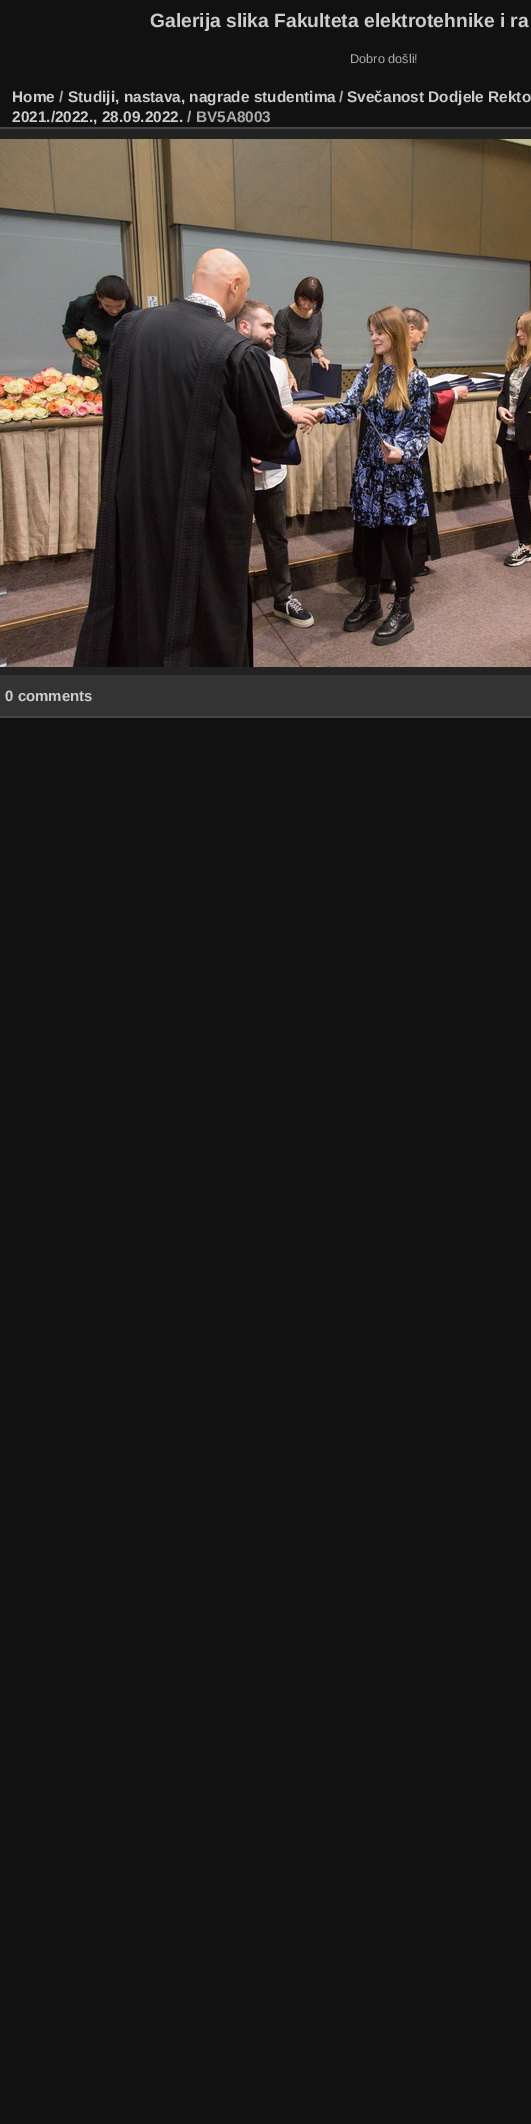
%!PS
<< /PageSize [531 2124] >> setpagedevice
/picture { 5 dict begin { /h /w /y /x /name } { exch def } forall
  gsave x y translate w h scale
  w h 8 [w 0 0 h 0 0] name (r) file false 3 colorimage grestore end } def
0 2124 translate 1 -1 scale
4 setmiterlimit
0.067 setgray
0 0 531 2124 rectfill
/LiberationSans-Bold [19.25 0 0 -19.25 0 0] selectfont
0.8 setgray
150 27 moveto (Galerija slika Fakulteta elektrotehnike i ra) show
/LiberationSans-Regular [12.75 0 0 -12.75 0 0] selectfont
0.667 setgray
350 63 moveto (Dobro došli!) show
0.133 setgray
0 129 531 546 rectfill
0.267 setgray
0 716 531 2 rectfill
0 127 531 2 rectfill
/LiberationSans-Bold [15.4 0 0 -15.4 0 0] selectfont
0.8 setgray
12 102 moveto (Home) show
0.667 setgray
59 102 moveto (/) show
0.8 setgray
68 102 moveto (Studiji, nastava, nagrade studentima) show
0.667 setgray
339 102 moveto (/) show
0.8 setgray
347 102 moveto (Svečanost Dodjele Rekto) show
12 122 moveto (2021./2022., 28.09.2022.) show
0.667 setgray
187 122 moveto (/ BV5A8003) show
(img1.rgb) 0 139 531 528 picture
0.2 setgray
0 675 531 41 rectfill
/LiberationSans-Bold [15 0 0 -15 0 0] selectfont
0.8 setgray
5 701 moveto (0 comments) show
showpage
